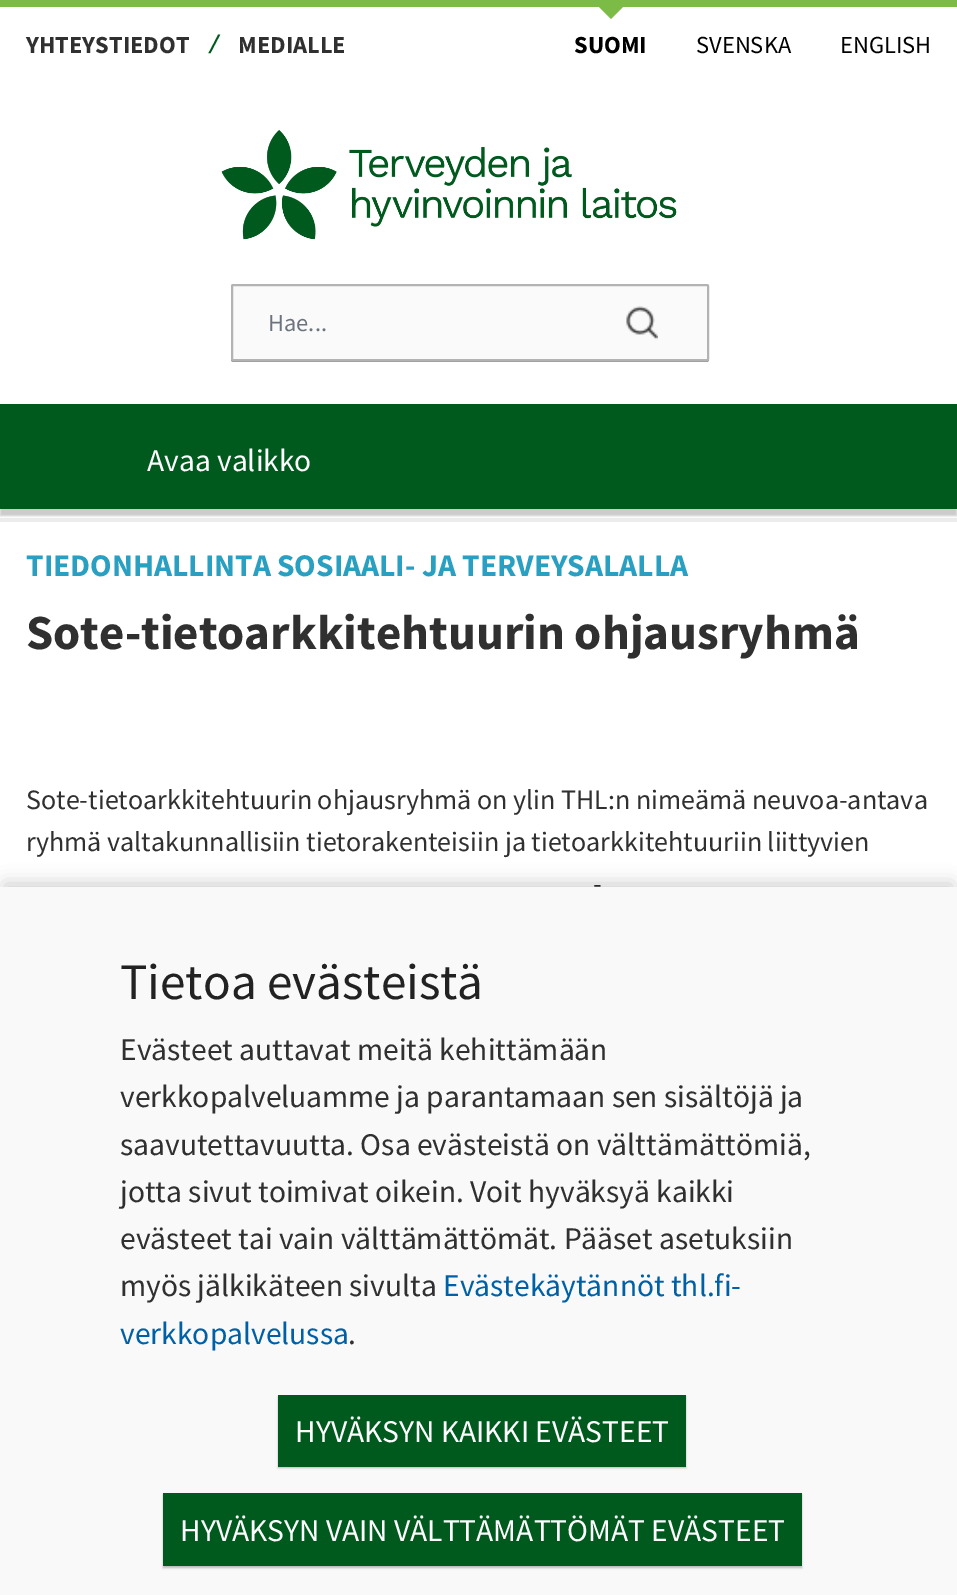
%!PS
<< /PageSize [957 1595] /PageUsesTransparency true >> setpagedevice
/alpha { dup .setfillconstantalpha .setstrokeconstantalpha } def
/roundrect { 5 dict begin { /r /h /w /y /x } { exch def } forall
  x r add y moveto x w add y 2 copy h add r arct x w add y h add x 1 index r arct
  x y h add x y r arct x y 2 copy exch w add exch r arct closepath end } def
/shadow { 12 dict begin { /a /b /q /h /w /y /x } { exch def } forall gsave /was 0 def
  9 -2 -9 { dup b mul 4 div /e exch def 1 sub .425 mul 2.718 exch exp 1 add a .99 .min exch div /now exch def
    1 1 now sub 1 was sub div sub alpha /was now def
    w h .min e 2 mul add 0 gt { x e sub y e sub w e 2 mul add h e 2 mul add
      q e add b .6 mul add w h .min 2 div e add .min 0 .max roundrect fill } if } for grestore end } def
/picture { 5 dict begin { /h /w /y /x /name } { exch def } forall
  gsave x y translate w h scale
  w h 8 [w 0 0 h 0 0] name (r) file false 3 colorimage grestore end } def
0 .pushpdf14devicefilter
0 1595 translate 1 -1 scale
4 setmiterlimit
1 setgray
0 0 957 1595 rectfill
0.49 0.733 0.278 setrgbcolor
0 0 957 7 rectfill
/SourceSansPro-Bold [24.5 0 0 -24.5 0 0] selectfont
0.188 setgray
26 53 moveto (YHTEYSTIEDOT) show
/SourceSansPro-Bold [28 0 0 -28 0 0] selectfont
0 0.353 0.118 setrgbcolor
213 53 moveto (⁄) show
/SourceSansPro-Bold [24.5 0 0 -24.5 0 0] selectfont
0.188 setgray
238 53 moveto (MEDIALLE) show
0.49 0.733 0.278 setrgbcolor
newpath 597 5 moveto 625 5 lineto 611 19 lineto closepath fill
0 setgray
574 53 moveto (SUOMI) show
/SourceSansPro-Regular [24.5 0 0 -24.5 0 0] selectfont
696 53 moveto (SVENSKA) show
840 53 moveto (ENGLISH) show
(img1.rgb) 221 130 456 110 picture
0.6 setgray
newpath 231 359 moveto 231 360 lineto 231 361 232 362 233 362 curveto 707 362 lineto 708 362 709 361 709 360 curveto 709 286 lineto 709 359 lineto 709 360 708 360 707 360 curveto 233 360 lineto 232 360 231 360 231 359 curveto closepath fill
0.98 setgray
232 285 476 75 1 roundrect gsave fill grestore
0.702 setgray
2 setlinewidth
stroke
0.424 0.459 0.49 setrgbcolor
268 331 moveto (Hae...) show
(img2.rgb) 626 306 32 34 picture
0.925 setgray
0 518 957 4 rectfill
0 setgray
0 411 957 105 0 1 0.2 shadow
0 0.353 0.118 setrgbcolor
0 404 957 105 rectfill
/SourceSansPro-Regular [31.5 0 0 -31.5 0 0] selectfont
1 setgray
147 471 moveto (Avaa valikko) show
/SourceSansPro-Bold [31.5 0 0 -31.5 0 0] selectfont
0.161 0.627 0.757 setrgbcolor
26 576 moveto (TIEDONHALLINTA SOSIAALI- JA TERVEYSALALLA) show
/SourceSansPro-Bold [49 0 0 -49 0 0] selectfont
0.188 setgray
26 649 moveto (Sote-tietoarkkitehtuurin ohjausryhmä) show
/SourceSansPro-Regular [28 0 0 -28 0 0] selectfont
26 809 moveto (Sote-tietoarkkitehtuurin ohjausryhmä on ylin THL:n nimeämä neuvoa-antava) show
26 851 moveto (ryhmä valtakunnallisiin tietorakenteisiin ja tietoarkkitehtuuriin liittyvien) show
593 893 moveto (-) show
0 setgray
5 884 947 698 0 9 0.2 shadow
0.976 setgray
0 887 957 708 rectfill
/SourceSansPro-Regular [51.25 0 0 -51.25 0 0] selectfont
0.133 setgray
120 999 moveto (Tietoa evästeistä) show
/SourceSansPro-Regular [31.5 0 0 -31.5 0 0] selectfont
0.188 setgray
120 1060 moveto (Evästeet auttavat meitä kehittämään) show
120 1107 moveto (verkkopalveluamme ja parantamaan sen sisältöjä ja) show
120 1155 moveto (saavutettavuutta. Osa evästeistä on välttämättömiä,) show
120 1202 moveto (jotta sivut toimivat oikein. Voit hyväksyä kaikki) show
120 1249 moveto (evästeet tai vain välttämättömät. Pääset asetuksiin) show
120 1296 moveto (myös jälkikäteen sivulta) show
0 0.376 0.651 setrgbcolor
443 1296 moveto (Evästekäytännöt thl.fi-) show
120 1344 moveto (verkkopalvelussa) show
0.188 setgray
348 1344 moveto (.) show
0 setgray
278 1397 408 71 0 1 0.25 shadow
0 0.353 0.118 setrgbcolor
278 1395 408 72 rectfill
1 setgray
295 1442 moveto (HYVÄKSYN KAIKKI EVÄSTEET) show
0 setgray
163 1495 639 73 0 1 0.25 shadow
0 0.353 0.118 setrgbcolor
163 1493 639 73 rectfill
1 setgray
180 1541 moveto (HYVÄKSYN VAIN VÄLTTÄMÄTTÖMÄT EVÄSTEET) show
.poppdf14devicefilter showpage
